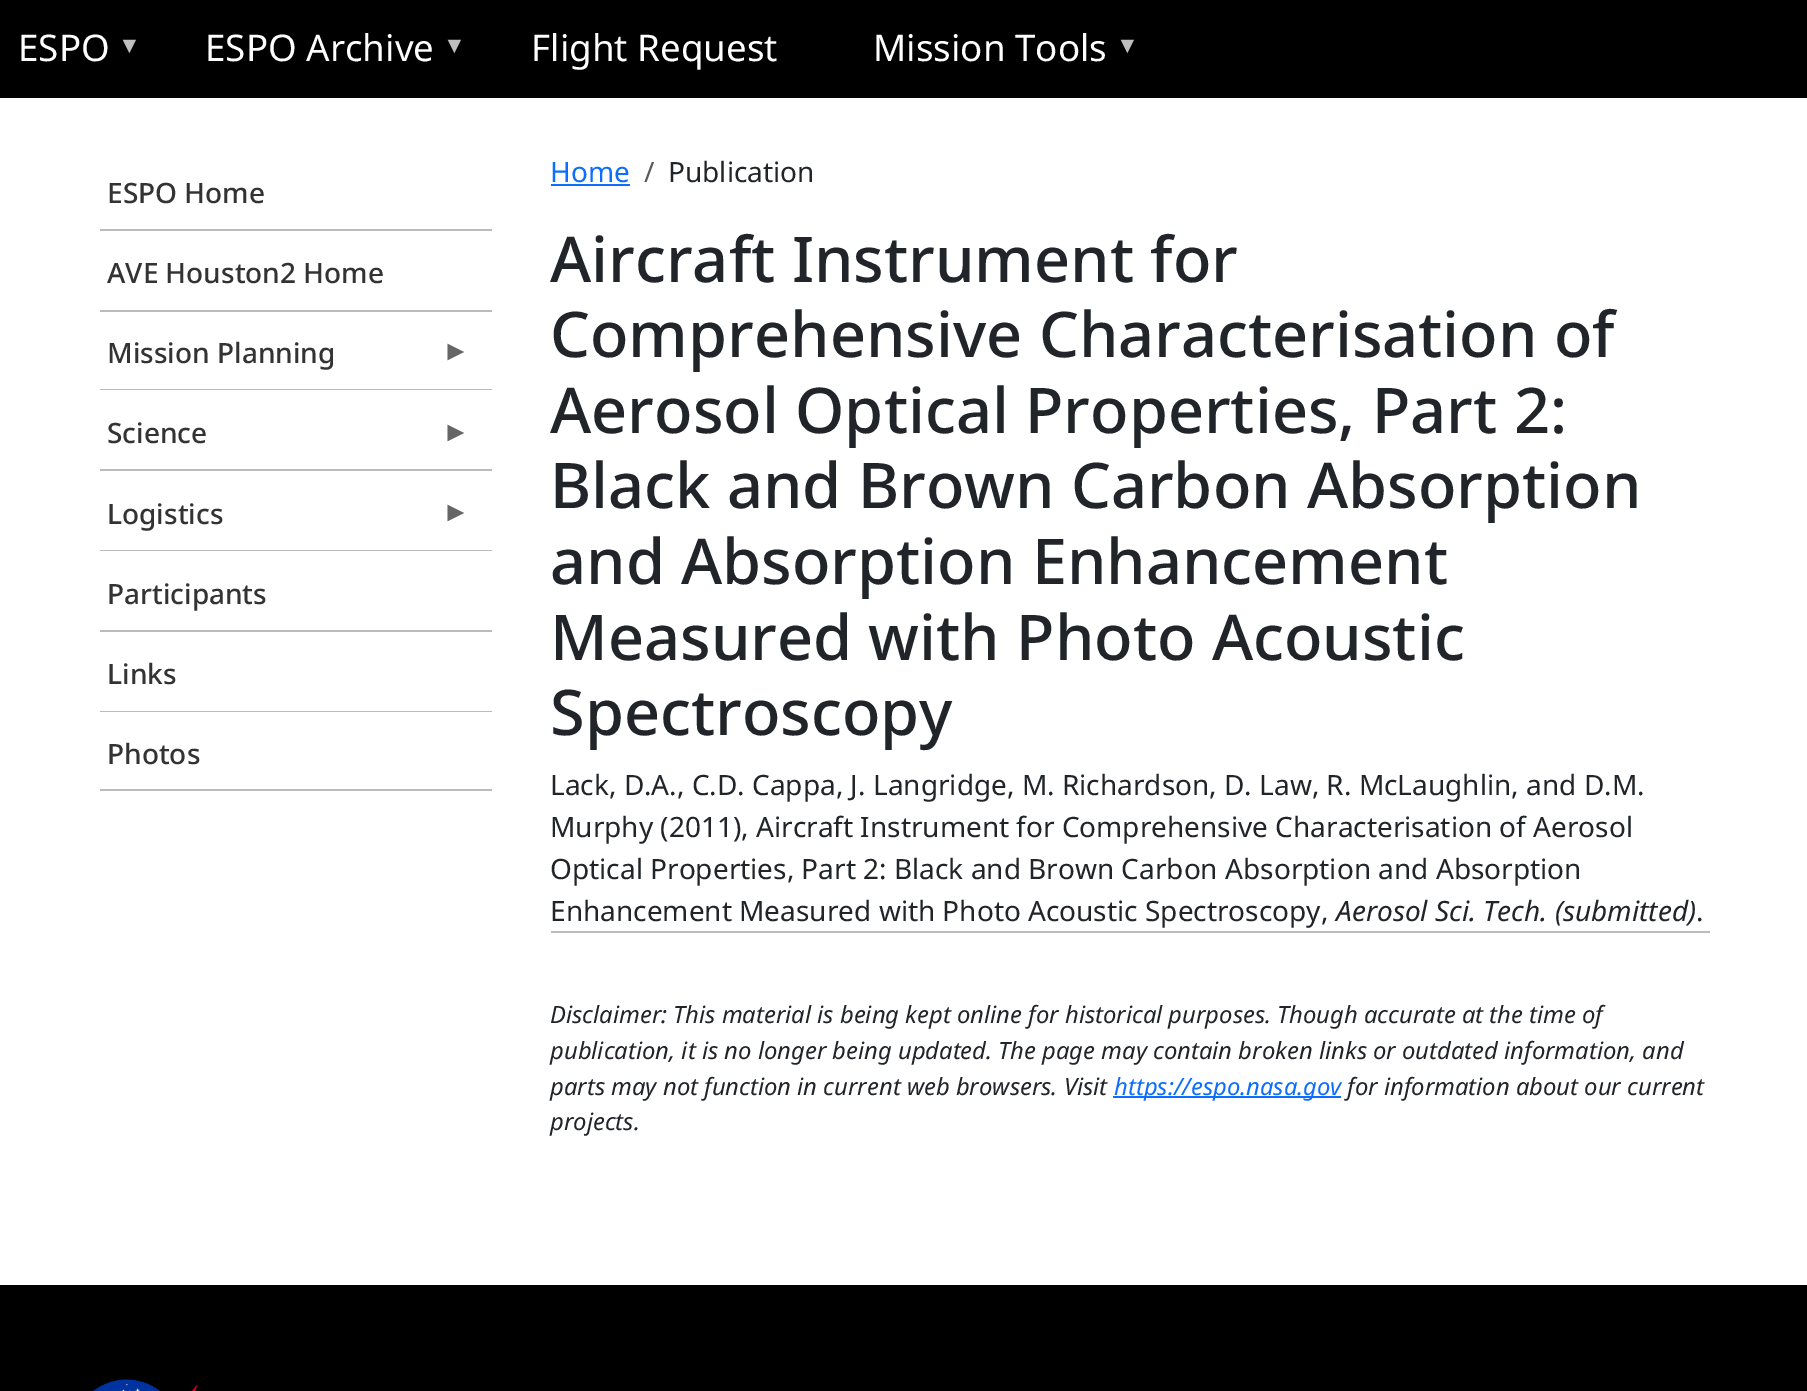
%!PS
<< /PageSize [1807 1391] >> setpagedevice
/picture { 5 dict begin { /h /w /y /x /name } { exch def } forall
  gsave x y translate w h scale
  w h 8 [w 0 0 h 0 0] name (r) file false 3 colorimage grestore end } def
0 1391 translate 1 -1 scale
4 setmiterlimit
1 setgray
0 0 1807 1391 rectfill
0 setgray
0 0 1807 98 rectfill
/NotoSans-Regular [36.75 0 0 -36.75 0 0] selectfont
1 setgray
18 61 moveto (ESPO) show
/LiberationSans-Regular [23 0 0 -23 0 0] selectfont
0.749 setgray
118 53 moveto (▼) show
/NotoSans-Regular [36.75 0 0 -36.75 0 0] selectfont
1 setgray
205 61 moveto (ESPO Archive) show
/LiberationSans-Regular [23 0 0 -23 0 0] selectfont
0.749 setgray
443 53 moveto (▼) show
/NotoSans-Regular [36.75 0 0 -36.75 0 0] selectfont
1 setgray
531 61 moveto (Flight Request) show
873 61 moveto (Mission Tools) show
/LiberationSans-Regular [23 0 0 -23 0 0] selectfont
0.749 setgray
1116 53 moveto (▼) show
0.733 setgray
100 229 392 2 rectfill
/NotoSans-Medium [28 0 0 -28 0 0] selectfont
0.2 setgray
107 203 moveto (ESPO Home) show
0.733 setgray
100 310 392 2 rectfill
0.2 setgray
107 283 moveto (AVE Houston2 Home) show
0.733 setgray
100 389 392 1 rectfill
0.2 setgray
107 363 moveto (Mission Planning) show
/LiberationSans-Regular [28 0 0 -28 0 0] selectfont
0.4 setgray
442 360 moveto (►) show
0.733 setgray
100 469 392 2 rectfill
/NotoSans-Medium [28 0 0 -28 0 0] selectfont
0.2 setgray
107 443 moveto (Science) show
/LiberationSans-Regular [28 0 0 -28 0 0] selectfont
0.4 setgray
442 441 moveto (►) show
0.733 setgray
100 550 392 1 rectfill
/NotoSans-Medium [28 0 0 -28 0 0] selectfont
0.2 setgray
107 524 moveto (Logistics) show
/LiberationSans-Regular [28 0 0 -28 0 0] selectfont
0.4 setgray
442 521 moveto (►) show
0.733 setgray
100 630 392 2 rectfill
/NotoSans-Medium [28 0 0 -28 0 0] selectfont
0.2 setgray
107 604 moveto (Participants) show
0.733 setgray
100 711 392 1 rectfill
0.2 setgray
107 684 moveto (Links) show
0.733 setgray
100 789 392 2 rectfill
0.2 setgray
107 764 moveto (Photos) show
/NotoSans-Regular [28 0 0 -28 0 0] selectfont
0.051 0.431 0.992 setrgbcolor
550 182 moveto (Home) show
551 184 79 2 rectfill
0.349 0.361 0.373 setrgbcolor
644 182 moveto (/) show
0.129 0.145 0.161 setrgbcolor
668 182 moveto (Publication) show
/NotoSans-Medium [63 0 0 -63 0 0] selectfont
550 282 moveto (Aircraft Instrument for) show
550 357 moveto (Comprehensive Characterisation of) show
550 433 moveto (Aerosol Optical Properties, Part 2:) show
550 508 moveto (Black and Brown Carbon Absorption) show
550 584 moveto (and Absorption Enhancement) show
550 660 moveto (Measured with Photo Acoustic) show
550 735 moveto (Spectroscopy) show
/NotoSans-Regular [28 0 0 -28 0 0] selectfont
550 795 moveto (Lack, D.A., C.D. Cappa, J. Langridge, M. Richardson, D. Law, R. McLaughlin, and D.M.) show
550 837 moveto (Murphy \(2011\), Aircraft Instrument for Comprehensive Characterisation of Aerosol) show
550 879 moveto (Optical Properties, Part 2: Black and Brown Carbon Absorption and Absorption) show
550 921 moveto (Enhancement Measured with Photo Acoustic Spectroscopy,) show
/NotoSans-Italic [28 0 0 -28 0 0] selectfont
1336 921 moveto (Aerosol Sci. Tech. \(submitted\)) show
/NotoSans-Regular [28 0 0 -28 0 0] selectfont
1696 921 moveto (.) show
0.733 setgray
551 931 1159 2 rectfill
/NotoSans-Italic [23.8 0 0 -23.8 0 0] selectfont
0.129 0.145 0.161 setrgbcolor
550 1023 moveto (Disclaimer: This material is being kept online for historical purposes. Though accurate at the time of) show
550 1059 moveto (publication, it is no longer being updated. The page may contain broken links or outdated information, and) show
550 1095 moveto (parts may not function in current web browsers. Visit) show
0.051 0.431 0.992 setrgbcolor
1113 1096 228 2 rectfill
1114 1095 moveto (https://espo.nasa.gov) show
0.129 0.145 0.161 setrgbcolor
1347 1095 moveto (for information about our current) show
550 1130 moveto (projects.) show
0 setgray
0 1285 1807 106 rectfill
(img1.rgb) 93 1379 105 12 picture
showpage
